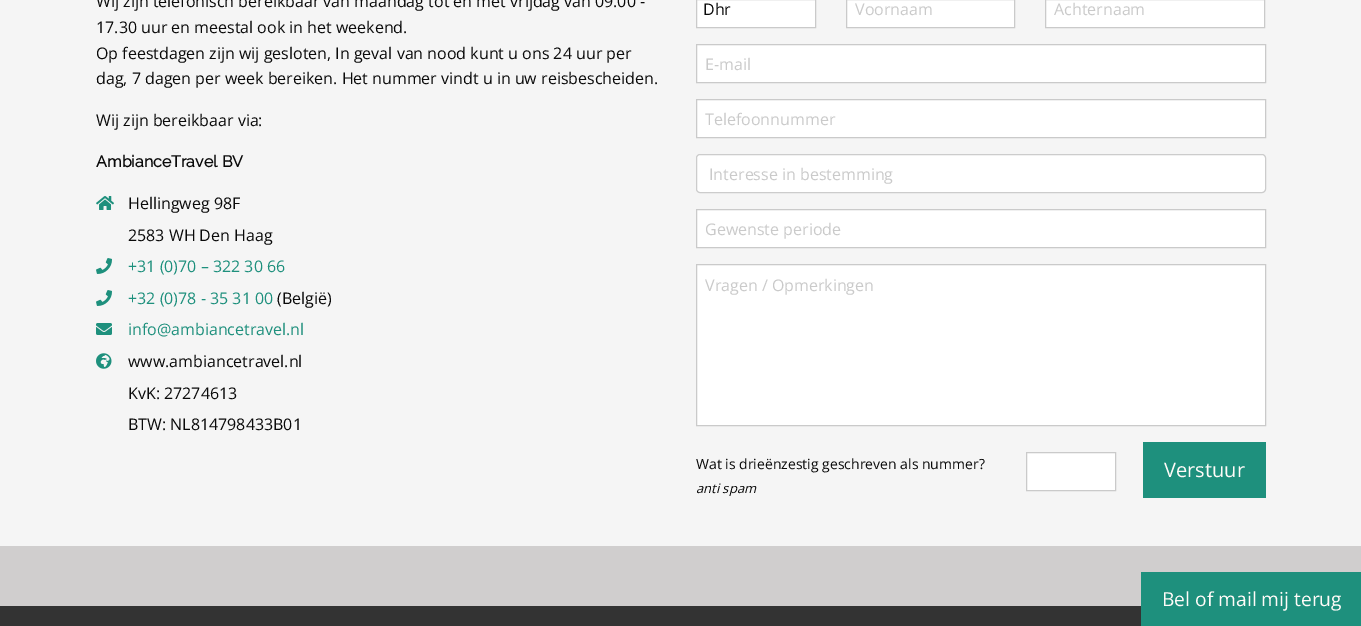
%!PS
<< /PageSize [1361 626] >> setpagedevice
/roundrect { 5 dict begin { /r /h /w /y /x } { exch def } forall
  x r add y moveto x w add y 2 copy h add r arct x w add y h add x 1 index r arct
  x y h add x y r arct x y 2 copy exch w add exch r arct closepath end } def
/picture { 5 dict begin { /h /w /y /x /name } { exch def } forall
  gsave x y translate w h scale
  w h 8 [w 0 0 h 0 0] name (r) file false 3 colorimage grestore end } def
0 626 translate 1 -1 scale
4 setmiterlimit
0.2 setgray
0 0 1361 626 rectfill
0.961 setgray
0 0 1361 546 rectfill
/OpenSans-Regular [16 0 0 -16 0 0] selectfont
0.039 setgray
96 7 moveto (Wij zijn telefonisch bereikbaar van maandag tot en met vrijdag van 09.00 -) show
96 33 moveto (17.30 uur en meestal ook in het weekend.) show
96 59 moveto (Op feestdagen zijn wij gesloten, In geval van nood kunt u ons 24 uur per) show
96 84 moveto (dag, 7 dagen per week bereiken. Het nummer vindt u in uw reisbescheiden.) show
96 126 moveto (Wij zijn bereikbaar via:) show
/Raleway-Bold [16 0 0 -16 0 0] selectfont
96 167 moveto (AmbianceTravel BV) show
(img1.rgb) 96 196 18 14 picture
/OpenSans-Regular [16 0 0 -16 0 0] selectfont
128 209 moveto (Hellingweg 98F) show
128 241 moveto (2583 WH Den Haag) show
(img2.rgb) 96 258 16 16 picture
0.118 0.565 0.49 setrgbcolor
128 272 moveto (+31 \(0\)70 – 322 30 66) show
(img2.rgb) 96 290 16 16 picture
128 304 moveto (+32 \(0\)78 - 35 31 00) show
0.039 setgray
277 304 moveto (\(België\)) show
(img3.rgb) 96 323 16 12 picture
0.118 0.565 0.49 setrgbcolor
128 335 moveto (info@ambiancetravel.nl) show
(img4.rgb) 96 353 16 16 picture
0.039 setgray
128 367 moveto (www.ambiancetravel.nl) show
128 399 moveto (KvK: 27274613) show
128 430 moveto (BTW: NL814798433B01) show
1 setgray
newpath 696.5 -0.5 moveto 815.5 -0.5 lineto 815.5 27.5 lineto 696.5 27.5 lineto closepath gsave fill grestore
0.792 setgray
stroke
0.039 setgray
703 15 moveto (Dhr) show
1 setgray
newpath 846.5 -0.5 moveto 1014.5 -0.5 lineto 1014.5 27.5 lineto 846.5 27.5 lineto closepath gsave fill grestore
0.792 setgray
stroke
855 15 moveto (Voornaam) show
1 setgray
newpath 1045.5 -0.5 moveto 1264.5 -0.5 lineto 1264.5 27.5 lineto 1045.5 27.5 lineto closepath gsave fill grestore
0.792 setgray
stroke
1054 15 moveto (Achternaam) show
1 setgray
newpath 696.5 44.5 moveto 1265.5 44.5 lineto 1265.5 82.5 lineto 696.5 82.5 lineto closepath gsave fill grestore
0.792 setgray
stroke
705 70 moveto (E-mail) show
1 setgray
newpath 696.5 99.5 moveto 1265.5 99.5 lineto 1265.5 137.5 lineto 696.5 137.5 lineto closepath gsave fill grestore
0.792 setgray
stroke
705 125 moveto (Telefoonnummer) show
1 setgray
696.5 154.5 569 38 3.5 roundrect gsave fill grestore
0.8 setgray
stroke
0.792 setgray
709 180 moveto (Interesse in bestemming) show
1 setgray
newpath 696.5 209.5 moveto 1265.5 209.5 lineto 1265.5 247.5 lineto 696.5 247.5 lineto closepath gsave fill grestore
0.792 setgray
stroke
705 235 moveto (Gewenste periode) show
1 setgray
newpath 696.5 264.5 moveto 1265.5 264.5 lineto 1265.5 425.5 lineto 696.5 425.5 lineto closepath gsave fill grestore
0.792 setgray
stroke
705 291 moveto (Vragen / Opmerkingen) show
/OpenSans-Regular [14 0 0 -14 0 0] selectfont
0.039 setgray
696 469 moveto (Wat is drieënzestig geschreven als nummer?) show
/OpenSans-Italic [13 0 0 -13 0 0] selectfont
696 493 moveto (anti spam) show
1 setgray
newpath 1026.5 452.5 moveto 1115.5 452.5 lineto 1115.5 490.5 lineto 1026.5 490.5 lineto closepath gsave fill grestore
0.792 setgray
stroke
0.118 0.565 0.49 setrgbcolor
1143 442 123 56 rectfill
/OpenSans-Regular [20 0 0 -20 0 0] selectfont
1 0.984 0.973 setrgbcolor
1164 477 moveto (Verstuur) show
0.816 0.808 0.808 setrgbcolor
0 546 1361 60 rectfill
0.118 0.565 0.49 setrgbcolor
1141 572 220 54 rectfill
/OpenSans-Regular [19.25 0 0 -19.25 0 0] selectfont
1 0.984 0.973 setrgbcolor
1162 606 moveto (Bel of mail mij terug) show
showpage
